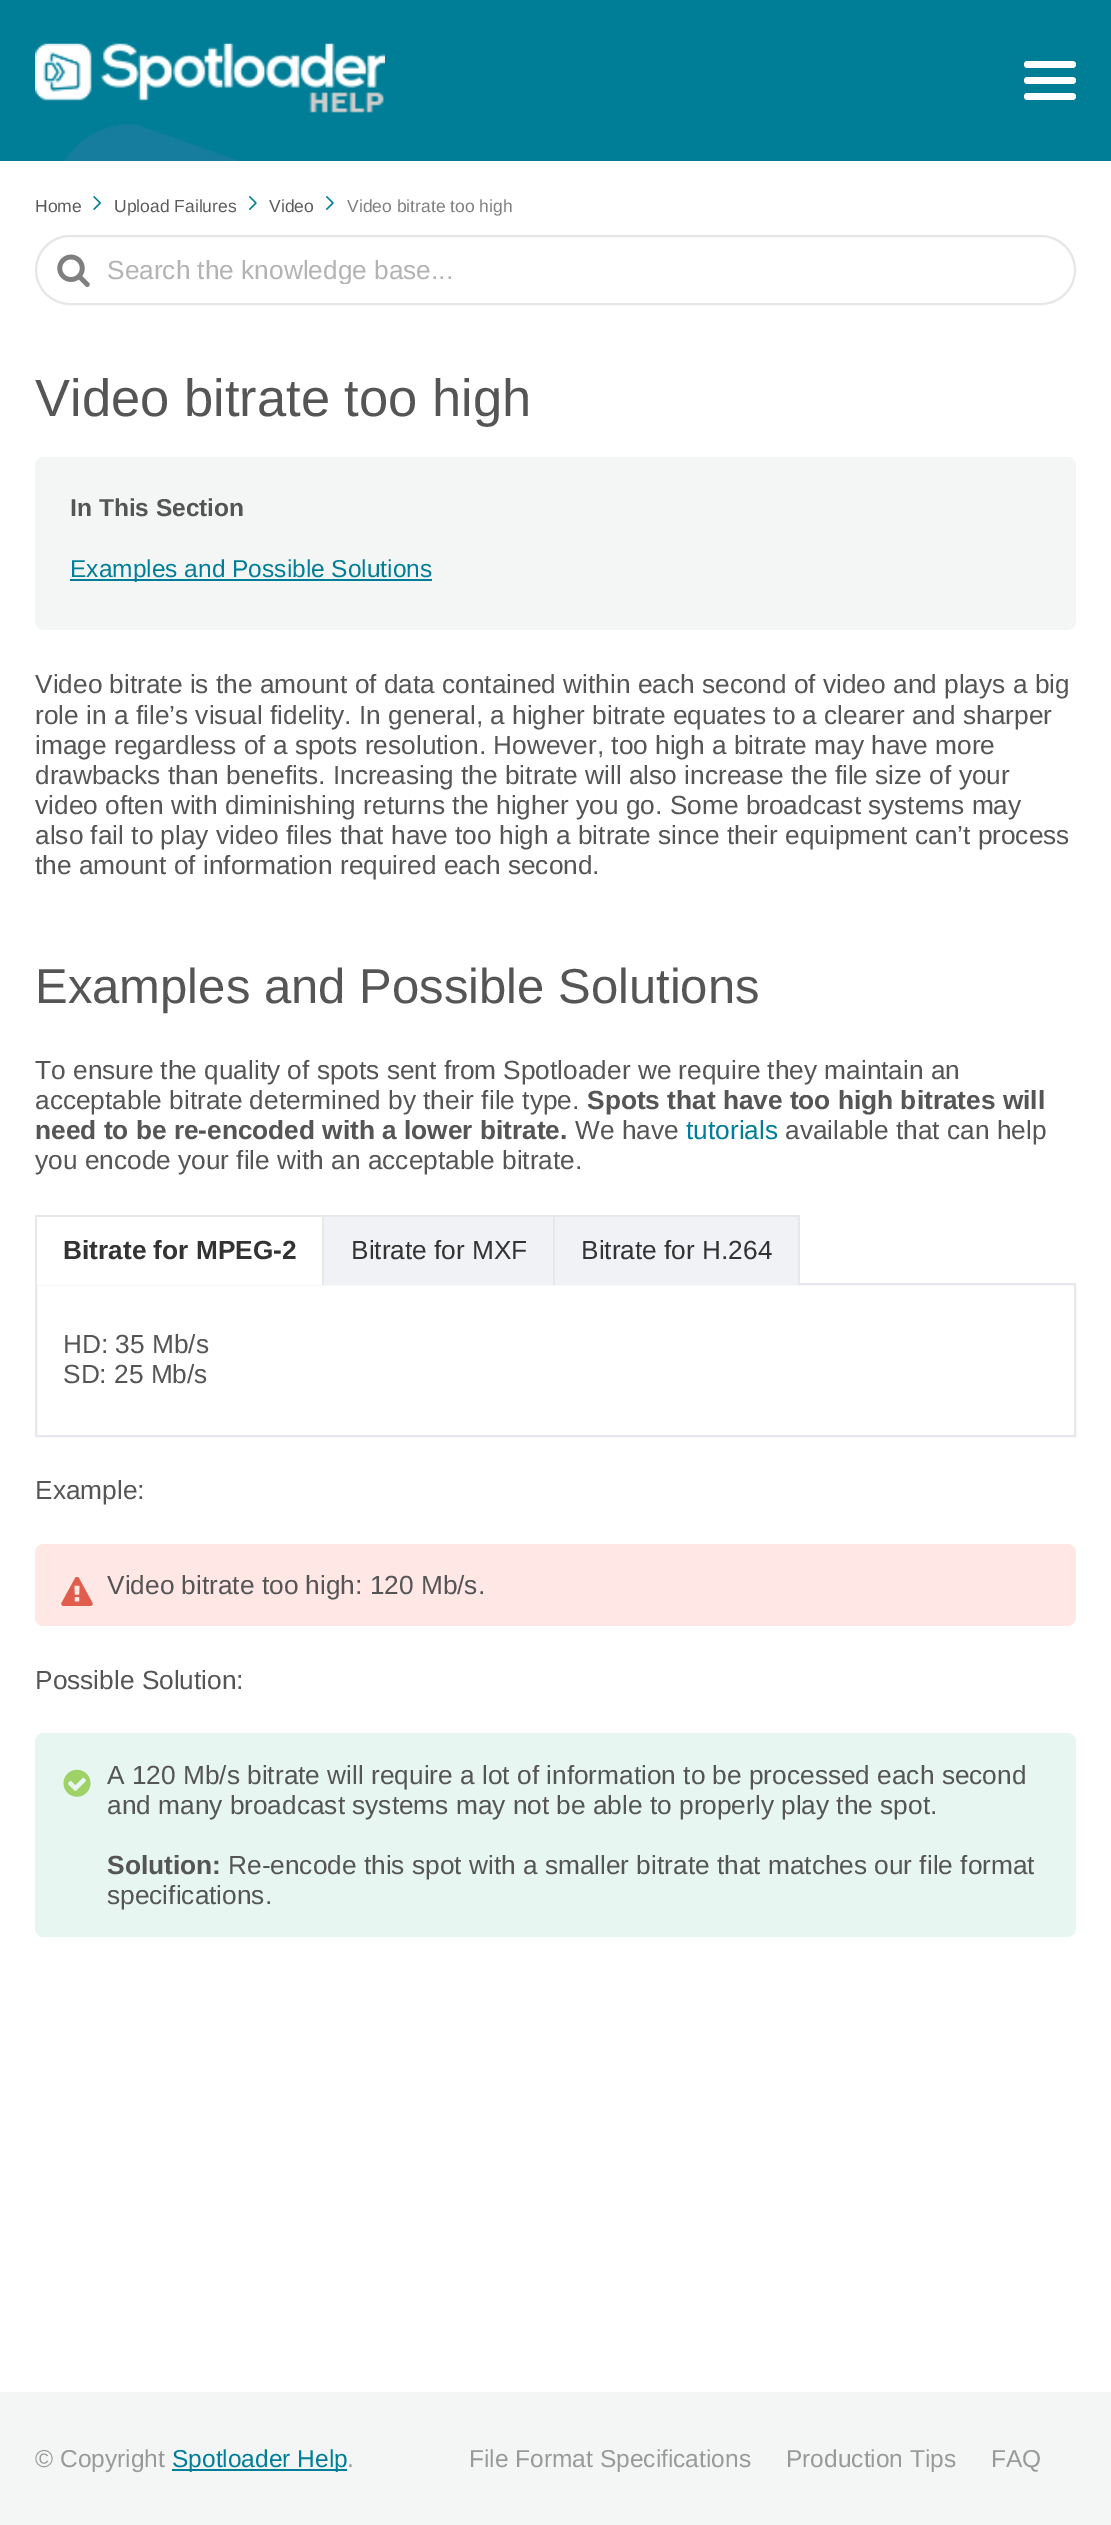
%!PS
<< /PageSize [1111 2525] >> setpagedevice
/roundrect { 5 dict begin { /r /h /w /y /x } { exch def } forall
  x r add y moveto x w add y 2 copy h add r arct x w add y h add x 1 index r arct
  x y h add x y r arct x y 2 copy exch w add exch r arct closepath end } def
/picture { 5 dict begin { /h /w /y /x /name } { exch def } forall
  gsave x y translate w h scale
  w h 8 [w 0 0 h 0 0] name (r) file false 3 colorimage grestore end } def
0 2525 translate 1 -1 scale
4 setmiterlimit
1 setgray
0 0 1111 2525 rectfill
0 0.494 0.592 setrgbcolor
0 0 1111 161 rectfill
(img1.rgb) 64 124 173 37 picture
(img2.rgb) 35 43 350 70 picture
1 setgray
1024 77 52 7 3.5 roundrect fill
1024 61 52 7 3.5 roundrect fill
1024 93 52 7 3.5 roundrect fill
/LiberationSans-Regular [17.5 0 0 -17.5 0 0] selectfont
0.361 setgray
35 212 moveto (Home) show
(img3.rgb) 93 196 8 14 picture
114 212 moveto (Upload Failures) show
(img4.rgb) 249 196 8 14 picture
269 212 moveto (Video) show
(img4.rgb) 326 196 8 14 picture
0.502 setgray
347 212 moveto (Video bitrate too high) show
0.902 setgray
2 setlinewidth
36 236 1039 68 34 roundrect stroke
(img5.rgb) 57 254 33 33 picture
gsave
107 254 941 30 rectclip
/LiberationSans-Regular [26.25 0 0 -26.25 0 0] selectfont
0.702 setgray
107 279 moveto (Search the knowledge base...) show
grestore
/LiberationSans-Regular [52.5 0 0 -52.5 0 0] selectfont
0.333 setgray
35 416 moveto (Video bitrate too high) show
0.957 0.961 0.961 setrgbcolor
35 457 1041 173 9 roundrect fill
/LiberationSans-Bold [24.5 0 0 -24.5 0 0] selectfont
0.333 setgray
70 516 moveto (In This Section) show
0 0.494 0.592 setrgbcolor
70 579 362 2 rectfill
/LiberationSans-Regular [24.5 0 0 -24.5 0 0] selectfont
70 577 moveto (Examples and Possible Solutions) show
/LiberationSans-Regular [26.25 0 0 -26.25 0 0] selectfont
0.333 setgray
35 693 moveto (Video bitrate is the amount of data contained within each second of video and plays a big) show
35 724 moveto (role in a file’s visual fidelity. In general, a higher bitrate equates to a clearer and sharper) show
35 754 moveto (image regardless of a spots resolution. However, too high a bitrate may have more) show
35 784 moveto (drawbacks than benefits. Increasing the bitrate will also increase the file size of your) show
35 814 moveto (video often with diminishing returns the higher you go. Some broadcast systems may) show
35 844 moveto (also fail to play video files that have too high a bitrate since their equipment can’t process) show
35 874 moveto (the amount of information required each second.) show
/LiberationSans-Regular [49 0 0 -49 0 0] selectfont
35 1003 moveto (Examples and Possible Solutions) show
/LiberationSans-Regular [26.25 0 0 -26.25 0 0] selectfont
35 1079 moveto (To ensure the quality of spots sent from Spotloader we require they maintain an) show
35 1109 moveto (acceptable bitrate determined by their file type.) show
/LiberationSans-Bold [26.25 0 0 -26.25 0 0] selectfont
587 1109 moveto (Spots that have too high bitrates will) show
35 1139 moveto (need to be re-encoded with a lower bitrate.) show
/LiberationSans-Regular [26.25 0 0 -26.25 0 0] selectfont
575 1139 moveto (We have) show
0 0.494 0.592 setrgbcolor
686 1139 moveto (tutorials) show
0.333 setgray
785 1139 moveto (available that can help) show
35 1169 moveto (you encode your file with an acceptable bitrate.) show
0.902 0.91 0.922 setrgbcolor
36 1284 1039 152 rectstroke
1 setgray
37 1283 285 2 rectfill
0.902 0.91 0.922 setrgbcolor
35 1215 765 2 rectfill
322 1215 2 70 rectfill
35 1215 2 70 rectfill
/LiberationSans-Bold [26.25 0 0 -26.25 0 0] selectfont
0.2 setgray
63 1259 moveto (Bitrate for MPEG-2) show
0.941 0.949 0.961 setrgbcolor
324 1217 229 68 rectfill
0.902 0.91 0.922 setrgbcolor
553 1215 2 70 rectfill
/LiberationSans-Regular [26.25 0 0 -26.25 0 0] selectfont
0.2 setgray
351 1259 moveto (Bitrate for MXF) show
0.941 0.949 0.961 setrgbcolor
555 1217 243 68 rectfill
0.902 0.91 0.922 setrgbcolor
798 1215 2 70 rectfill
0.2 setgray
581 1259 moveto (Bitrate for H.264) show
0.333 setgray
63 1353 moveto (HD: 35 Mb/s) show
63 1383 moveto (SD: 25 Mb/s) show
35 1499 moveto (Example:) show
1 0.906 0.898 setrgbcolor
35 1544 1041 82 9 roundrect fill
(img6.rgb) 61 1577 32 29 picture
0.333 setgray
107 1594 moveto (Video bitrate too high: 120 Mb/s.) show
35 1689 moveto (Possible Solution:) show
0.906 0.965 0.941 setrgbcolor
35 1733 1041 204 9 roundrect fill
(img7.rgb) 63 1769 28 28 picture
0.333 setgray
107 1784 moveto (A 120 Mb/s bitrate will require a lot of information to be processed each second) show
107 1814 moveto (and many broadcast systems may not be able to properly play the spot.) show
/LiberationSans-Bold [26.25 0 0 -26.25 0 0] selectfont
107 1874 moveto (Solution:) show
/LiberationSans-Regular [26.25 0 0 -26.25 0 0] selectfont
228 1874 moveto (Re-encode this spot with a smaller bitrate that matches our file format) show
107 1904 moveto (specifications.) show
0.957 0.961 0.961 setrgbcolor
0 2392 1111 133 rectfill
/LiberationSans-Regular [24.5 0 0 -24.5 0 0] selectfont
0.6 setgray
35 2467 moveto (© Copyright) show
0 0.494 0.592 setrgbcolor
172 2469 175 2 rectfill
172 2467 moveto (Spotloader Help) show
0.6 setgray
347 2467 moveto (.) show
469 2467 moveto (File Format Specifications) show
786 2467 moveto (Production Tips) show
991 2467 moveto (FAQ) show
showpage
